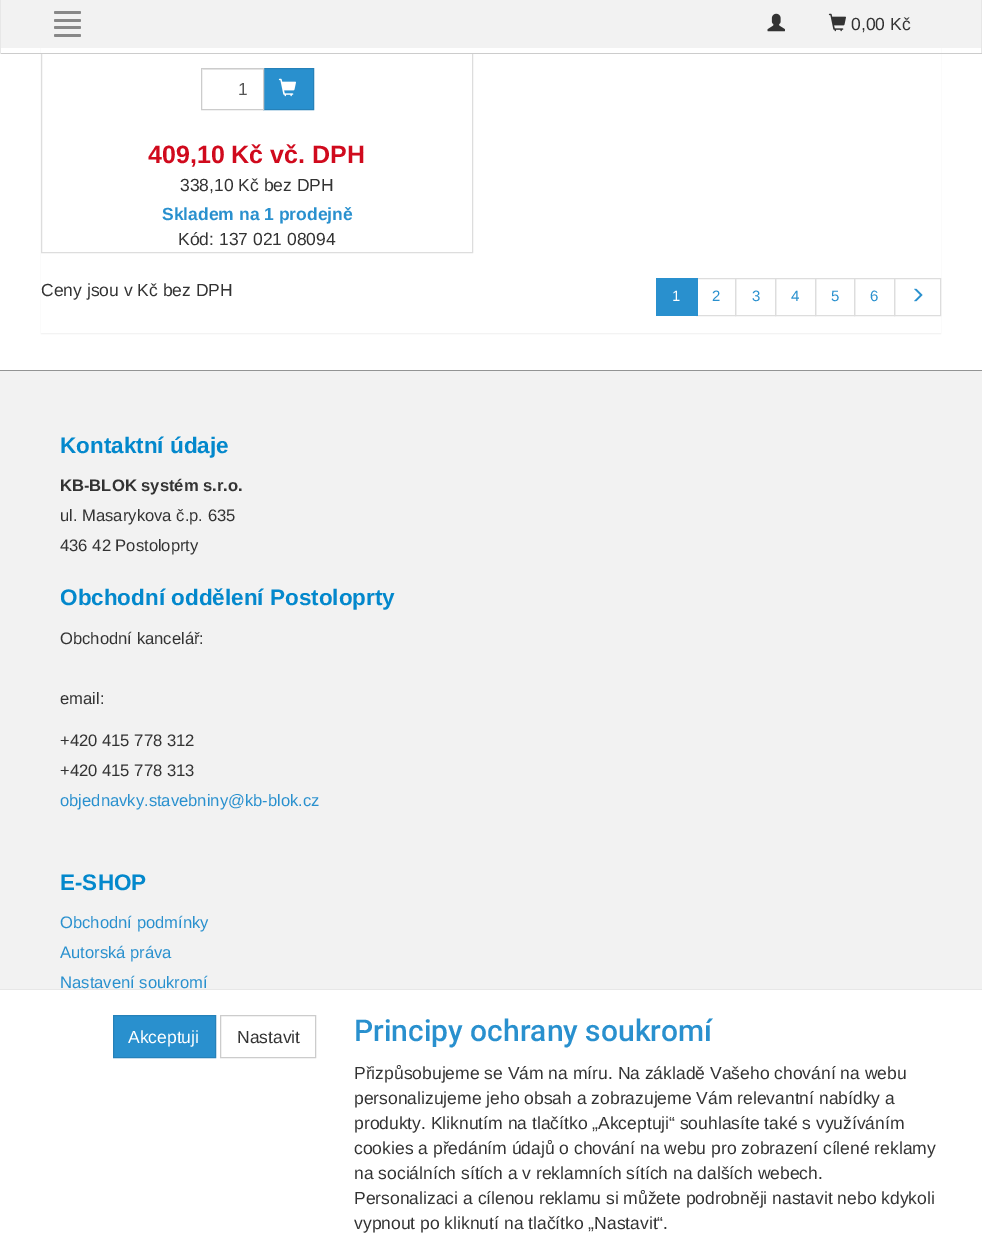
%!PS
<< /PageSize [982 1240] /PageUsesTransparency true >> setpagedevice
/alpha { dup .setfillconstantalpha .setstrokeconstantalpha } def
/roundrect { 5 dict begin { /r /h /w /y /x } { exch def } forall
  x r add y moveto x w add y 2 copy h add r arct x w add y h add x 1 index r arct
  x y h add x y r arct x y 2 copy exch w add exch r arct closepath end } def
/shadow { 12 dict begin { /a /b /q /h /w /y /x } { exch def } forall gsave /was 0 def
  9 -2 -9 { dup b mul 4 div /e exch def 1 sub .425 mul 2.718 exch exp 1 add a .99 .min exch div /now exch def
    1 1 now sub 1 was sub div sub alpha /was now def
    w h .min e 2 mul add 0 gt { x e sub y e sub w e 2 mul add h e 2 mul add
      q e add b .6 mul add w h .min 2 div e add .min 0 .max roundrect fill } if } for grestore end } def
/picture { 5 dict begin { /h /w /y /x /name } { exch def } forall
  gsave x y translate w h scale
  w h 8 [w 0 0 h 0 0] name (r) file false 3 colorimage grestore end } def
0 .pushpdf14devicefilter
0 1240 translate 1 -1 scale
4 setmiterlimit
1 setgray
0 0 982 1240 rectfill
0 setgray
41 -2 900 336 0 0.5 0.05 shadow
1 setgray
41 54 900 279 rectfill
0.867 setgray
41.5 -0.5 431 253 rectstroke
1 setgray
41 48 900 5 rectfill
0.906 setgray
981 0 1 54 rectfill
0.8 setgray
0 53 982 1 rectfill
0.906 setgray
0 0 1 54 rectfill
0.949 setgray
1 0 980 48 rectfill
0.533 setgray
54 11 27 3 1.5 roundrect fill
54 19 27 3 1.5 roundrect fill
54 26 27 3 1.5 roundrect fill
54 34 27 3 1.5 roundrect fill
(img1.rgb) 767 13 18 19 picture
(img2.rgb) 828 13 18 19 picture
/LiberationSans-Regular [17.5 0 0 -17.5 0 0] selectfont
0.2 setgray
851 30 moveto (0,00 Kč) show
0.925 setgray
203 69 60 1 rectfill
0.161 0.565 0.808 setrgbcolor
newpath 263.5 68.5 moveto 313.5 68.5 lineto 313.5 109.5 lineto 263.5 109.5 lineto closepath gsave fill grestore
0.145 0.506 0.725 setrgbcolor
stroke
0.8 setgray
201.5 68.5 62 41 rectstroke
0.333 setgray
238 95 moveto (1) show
(img3.rgb) 278 78 18 19 picture
/LiberationSans-Bold [25 0 0 -25 0 0] selectfont
0.816 0.039 0.114 setrgbcolor
148 163 moveto (409,10 Kč vč. DPH) show
/LiberationSans-Regular [17.5 0 0 -17.5 0 0] selectfont
0.2 setgray
180 191 moveto (338,10 Kč bez DPH) show
/LiberationSans-Bold [17.5 0 0 -17.5 0 0] selectfont
0.161 0.565 0.808 setrgbcolor
162 220 moveto (Skladem na 1 prodejně) show
/LiberationSans-Regular [17.5 0 0 -17.5 0 0] selectfont
0.2 setgray
178 245 moveto (Kód: 137 021 08094) show
41 296 moveto (Ceny jsou v Kč bez DPH) show
0.867 setgray
696.5 278.5 39 37 rectstroke
0.161 0.565 0.808 setrgbcolor
656 278 42 38 rectfill
/LiberationSans-Regular [15 0 0 -15 0 0] selectfont
1 setgray
672 301 moveto (1) show
0.161 0.565 0.808 setrgbcolor
712 301 moveto (2) show
0.867 setgray
735.5 278.5 40 37 rectstroke
0.161 0.565 0.808 setrgbcolor
752 301 moveto (3) show
0.867 setgray
775.5 278.5 40 37 rectstroke
0.161 0.565 0.808 setrgbcolor
791 301 moveto (4) show
0.867 setgray
815.5 278.5 39 37 rectstroke
0.161 0.565 0.808 setrgbcolor
831 301 moveto (5) show
0.867 setgray
854.5 278.5 40 37 rectstroke
0.161 0.565 0.808 setrgbcolor
870 301 moveto (6) show
0.867 setgray
894.5 278.5 46 37 rectstroke
(img4.rgb) 914 288 9 14 picture
0.949 setgray
0 371 982 618 rectfill
0.576 0.58 0.58 setrgbcolor
0 370 982 1 rectfill
/LiberationSans-Bold [22.5 0 0 -22.5 0 0] selectfont
0.012 0.533 0.8 setrgbcolor
60 453 moveto (Kontaktní údaje) show
/LiberationSans-Bold [16.6 0 0 -16.6 0 0] selectfont
0.2 setgray
60 491 moveto (KB-BLOK systém s.r.o.) show
/LiberationSans-Regular [16.6 0 0 -16.6 0 0] selectfont
60 521 moveto (ul. Masarykova č.p. 635) show
60 551 moveto (436 42 Postoloprty) show
/LiberationSans-Bold [22.5 0 0 -22.5 0 0] selectfont
0.012 0.533 0.8 setrgbcolor
60 605 moveto (Obchodní oddělení Postoloprty) show
/LiberationSans-Regular [16.6 0 0 -16.6 0 0] selectfont
0.2 setgray
60 644 moveto (Obchodní kancelář:) show
60 704 moveto (email:) show
60 746 moveto (+420 415 778 312) show
60 776 moveto (+420 415 778 313) show
0.161 0.565 0.808 setrgbcolor
60 806 moveto (objednavky.stavebniny@kb-blok.cz) show
/LiberationSans-Bold [22.5 0 0 -22.5 0 0] selectfont
0.012 0.533 0.8 setrgbcolor
60 890 moveto (E-SHOP) show
/LiberationSans-Regular [16.6 0 0 -16.6 0 0] selectfont
0.161 0.565 0.808 setrgbcolor
60 928 moveto (Obchodní podmínky) show
60 958 moveto (Autorská práva) show
60 988 moveto (Nastavení soukromí) show
0.906 setgray
0 989 982 1 rectfill
0.161 0.565 0.808 setrgbcolor
newpath 113.5 1015.5 moveto 215.5 1015.5 lineto 215.5 1057.5 lineto 113.5 1057.5 lineto closepath gsave fill grestore
0.145 0.506 0.725 setrgbcolor
stroke
/LiberationSans-Regular [17.5 0 0 -17.5 0 0] selectfont
1 setgray
128 1043 moveto (Akceptuji) show
0.8 setgray
220.5 1015.5 95 42 rectstroke
0.2 setgray
237 1043 moveto (Nastavit) show
/Roboto-Medium [30 0 0 -30 0 0] selectfont
0.161 0.565 0.808 setrgbcolor
354 1041 moveto (Principy ochrany soukromí) show
/LiberationSans-Regular [17.5 0 0 -17.5 0 0] selectfont
0.2 setgray
354 1079 moveto (Přizpůsobujeme se Vám na míru. Na základě Vašeho chování na webu) show
354 1104 moveto (personalizujeme jeho obsah a zobrazujeme Vám relevantní nabídky a) show
354 1129 moveto (produkty. Kliknutím na tlačítko „Akceptuji“ souhlasíte také s využíváním) show
354 1154 moveto (cookies a předáním údajů o chování na webu pro zobrazení cílené reklamy) show
354 1179 moveto (na sociálních sítích a v reklamních sítích na dalších webech.) show
354 1204 moveto (Personalizaci a cílenou reklamu si můžete podrobněji nastavit nebo kdykoli) show
354 1229 moveto (vypnout po kliknutí na tlačítko „Nastavit“.) show
.poppdf14devicefilter showpage
